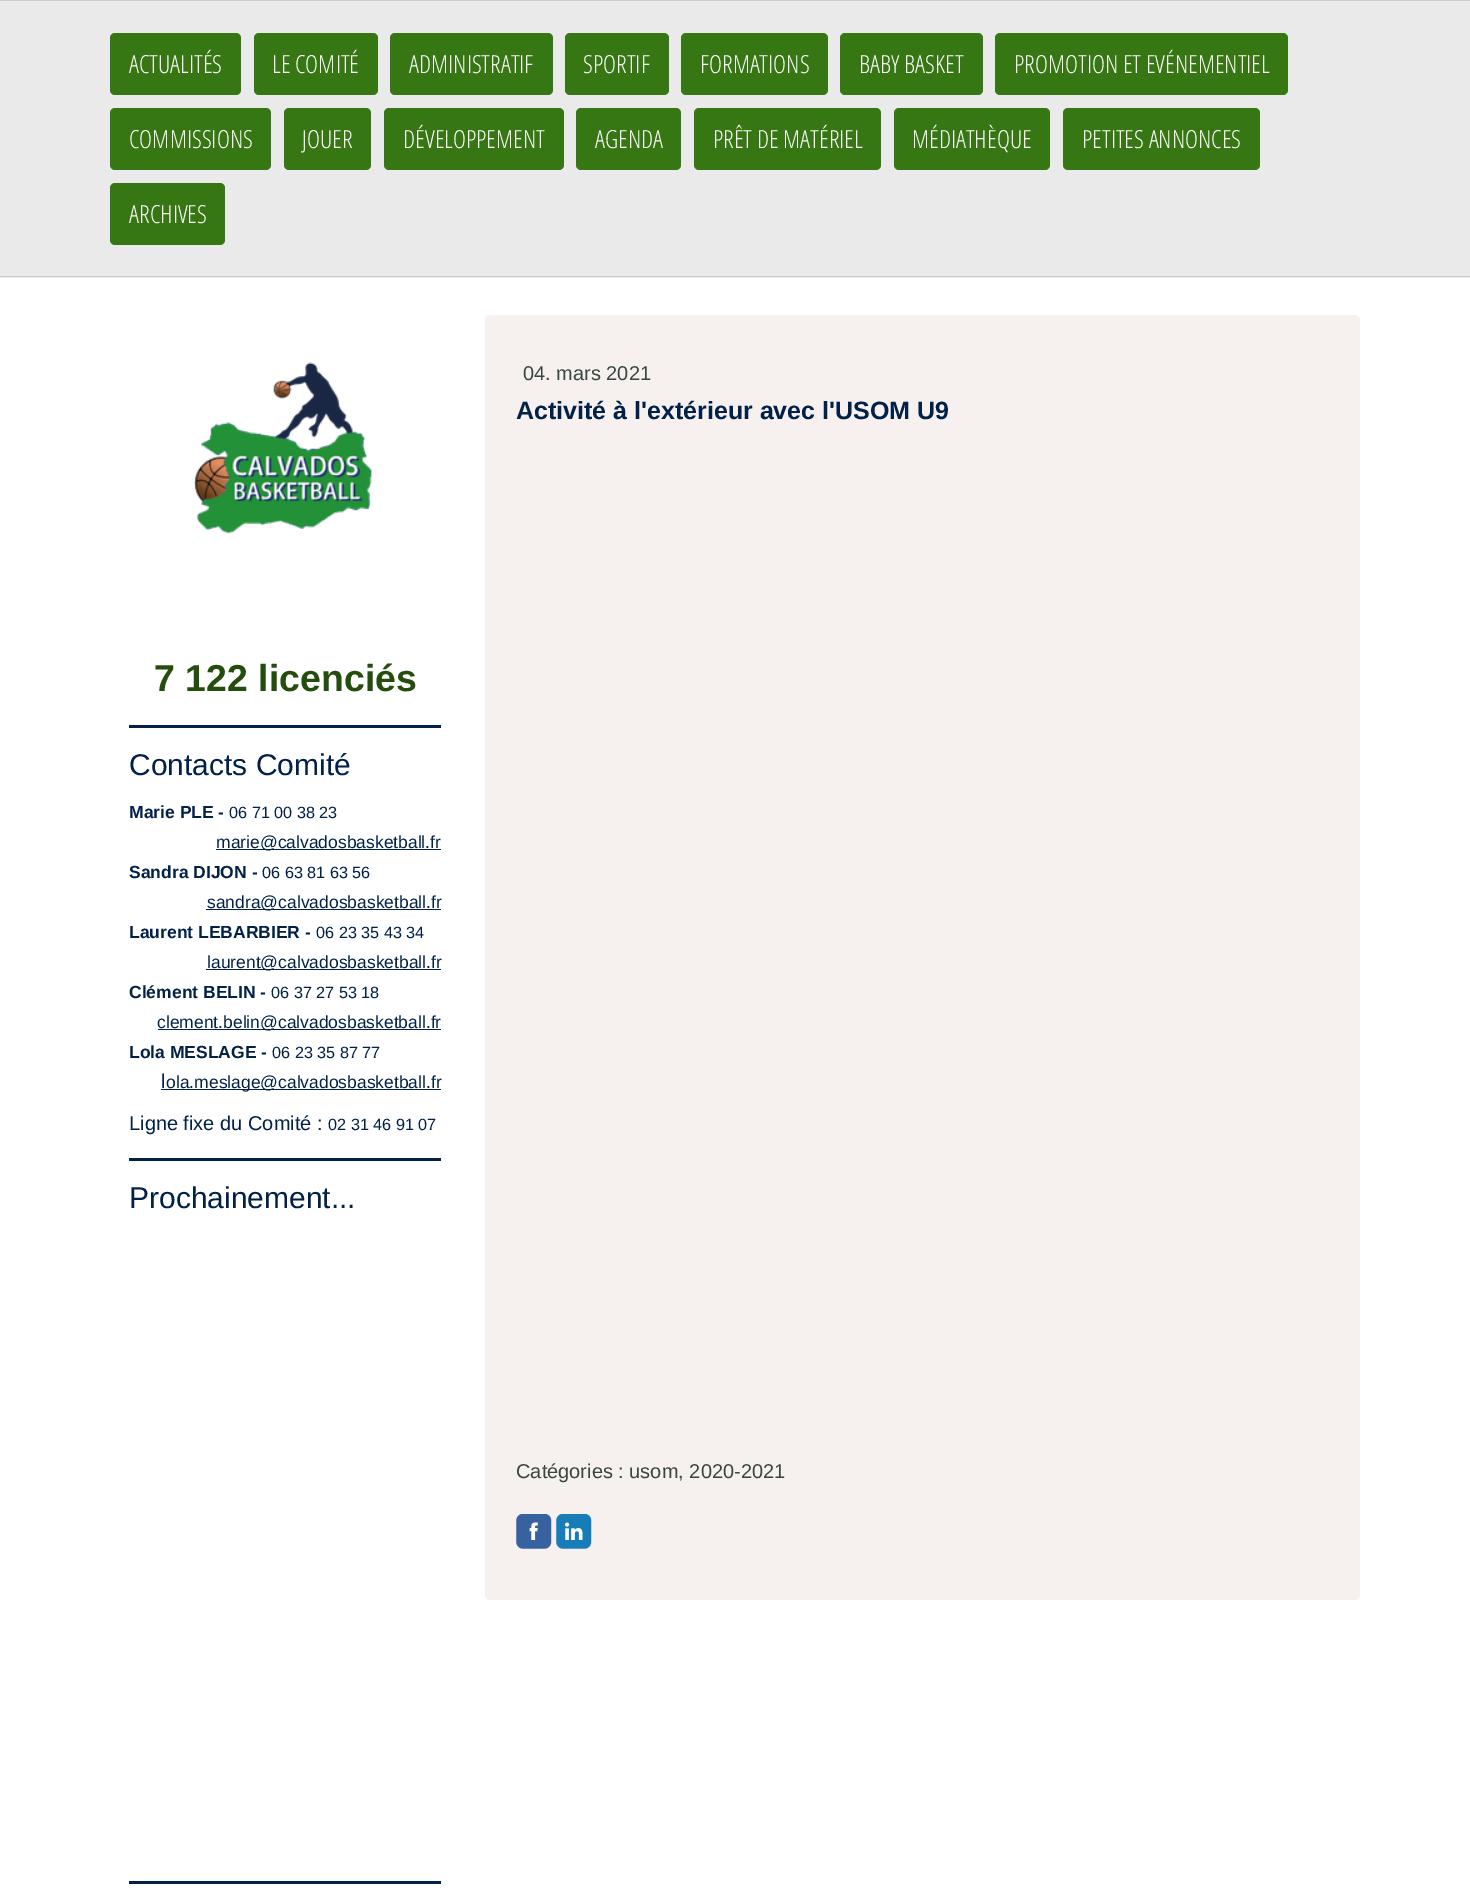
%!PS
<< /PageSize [1470 1897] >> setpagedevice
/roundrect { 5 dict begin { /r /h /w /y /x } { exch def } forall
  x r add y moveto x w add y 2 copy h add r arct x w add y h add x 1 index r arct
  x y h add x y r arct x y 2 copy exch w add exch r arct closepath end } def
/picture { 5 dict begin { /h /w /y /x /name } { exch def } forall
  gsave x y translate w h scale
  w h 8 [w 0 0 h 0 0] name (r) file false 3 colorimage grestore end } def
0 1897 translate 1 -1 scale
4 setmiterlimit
1 setgray
0 0 1470 1897 rectfill
0.918 setgray
0 1 1470 277 rectfill
0.8 setgray
0 0 1470 1 rectfill
0 276 1470 1 rectfill
0.212 0.467 0.078 setrgbcolor
110 33 131 62 5 roundrect fill
/OpenSansCondensed-Light [25 0 0 -25 0 0] selectfont
1 setgray
129 73 moveto (ACTUALITÉS) show
0.212 0.467 0.078 setrgbcolor
254 33 124 62 5 roundrect fill
1 setgray
272 73 moveto (LE COMITÉ) show
0.212 0.467 0.078 setrgbcolor
390 33 163 62 5 roundrect fill
1 setgray
409 73 moveto (ADMINISTRATIF) show
0.212 0.467 0.078 setrgbcolor
565 33 104 62 5 roundrect fill
1 setgray
583 73 moveto (SPORTIF) show
0.212 0.467 0.078 setrgbcolor
681 33 147 62 5 roundrect fill
1 setgray
700 73 moveto (FORMATIONS) show
0.212 0.467 0.078 setrgbcolor
840 33 143 62 5 roundrect fill
1 setgray
859 73 moveto (BABY BASKET) show
0.212 0.467 0.078 setrgbcolor
995 33 293 62 5 roundrect fill
1 setgray
1014 73 moveto (PROMOTION ET EVÉNEMENTIEL) show
0.212 0.467 0.078 setrgbcolor
110 108 161 62 5 roundrect fill
1 setgray
129 148 moveto (COMMISSIONS) show
0.212 0.467 0.078 setrgbcolor
284 108 87 62 5 roundrect fill
1 setgray
302 148 moveto (JOUER) show
0.212 0.467 0.078 setrgbcolor
384 108 180 62 5 roundrect fill
1 setgray
403 148 moveto (DÉVELOPPEMENT) show
0.212 0.467 0.078 setrgbcolor
576 108 105 62 5 roundrect fill
1 setgray
595 148 moveto (AGENDA) show
0.212 0.467 0.078 setrgbcolor
694 108 187 62 5 roundrect fill
1 setgray
713 148 moveto (PRÊT DE MATÉRIEL) show
0.212 0.467 0.078 setrgbcolor
894 108 156 62 5 roundrect fill
1 setgray
912 148 moveto (MÉDIATHÈQUE) show
0.212 0.467 0.078 setrgbcolor
1063 108 197 62 5 roundrect fill
1 setgray
1082 148 moveto (PETITES ANNONCES) show
0.212 0.467 0.078 setrgbcolor
110 183 115 62 5 roundrect fill
1 setgray
129 223 moveto (ARCHIVES) show
(img1.rgb) 193 362 180 172 picture
0.965 0.945 0.937 setrgbcolor
485 315 875 1285 5 roundrect fill
/Arimo-Regular [20 0 0 -20 0 0] selectfont
0.227 0.275 0.259 setrgbcolor
523 380 moveto (04. mars 2021) show
/LiberationSans-Bold [25 0 0 -25 0 0] selectfont
0.004 0.129 0.282 setrgbcolor
516 419 moveto (Activité à l'extérieur avec l'USOM U9) show
/Arimo-Regular [20 0 0 -20 0 0] selectfont
0.227 0.275 0.259 setrgbcolor
516 1478 moveto (Catégories : usom, 2020-2021) show
(img2.rgb) 516 1514 36 35 picture
(img3.rgb) 529 1522 9 18 picture
(img4.rgb) 556 1514 36 35 picture
(img5.rgb) 565 1522 18 18 picture
/Arimo-Bold [37.5 0 0 -37.5 0 0] selectfont
0.145 0.306 0.055 setrgbcolor
154 691 moveto (7 122 licenciés) show
0.004 0.129 0.282 setrgbcolor
129 725 312 3 rectfill
/Arimo-Regular [30 0 0 -30 0 0] selectfont
129 775 moveto (Contacts Comité) show
/Arimo-Bold [17.5 0 0 -17.5 0 0] selectfont
129 818 moveto (Marie PLE -) show
/Arimo-Regular [16.25 0 0 -16.25 0 0] selectfont
229 818 moveto (06 71 00 38 23) show
216 849 225 1 rectfill
/Arimo-Regular [17.5 0 0 -17.5 0 0] selectfont
216 848 moveto (marie@calvadosbasketball.fr) show
/Arimo-Bold [17.5 0 0 -17.5 0 0] selectfont
129 878 moveto (Sandra DIJON -) show
/Arimo-Regular [16.25 0 0 -16.25 0 0] selectfont
262 878 moveto (06 63 81 63 56) show
206 909 235 1 rectfill
/Arimo-Regular [17.5 0 0 -17.5 0 0] selectfont
207 908 moveto (sandra@calvadosbasketball.fr) show
/Arimo-Bold [17.5 0 0 -17.5 0 0] selectfont
129 938 moveto (Laurent LEBARBIER -) show
/Arimo-Regular [16.25 0 0 -16.25 0 0] selectfont
316 938 moveto (06 23 35 43 34) show
206 969 235 1 rectfill
/Arimo-Regular [17.5 0 0 -17.5 0 0] selectfont
207 968 moveto (laurent@calvadosbasketball.fr) show
/Arimo-Bold [17.5 0 0 -17.5 0 0] selectfont
129 998 moveto (Clément BELIN -) show
/Arimo-Regular [16.25 0 0 -16.25 0 0] selectfont
271 998 moveto (06 37 27 53 18) show
158 1029 283 1 rectfill
/Arimo-Regular [17.5 0 0 -17.5 0 0] selectfont
157 1028 moveto (clement.belin@calvadosbasketball.fr) show
/Arimo-Bold [17.5 0 0 -17.5 0 0] selectfont
129 1058 moveto (Lola MESLAGE -) show
/Arimo-Regular [16.25 0 0 -16.25 0 0] selectfont
272 1058 moveto (06 23 35 87 77) show
/Arimo-Regular [20 0 0 -20 0 0] selectfont
161 1088 moveto (l) show
161 1089 280 1 rectfill
/Arimo-Regular [17.5 0 0 -17.5 0 0] selectfont
166 1088 moveto (ola.meslage@calvadosbasketball.fr) show
/Arimo-Regular [20 0 0 -20 0 0] selectfont
129 1130 moveto (Ligne fixe du Comité :) show
/Arimo-Regular [16.25 0 0 -16.25 0 0] selectfont
328 1130 moveto (02 31 46 91 07) show
129 1158 312 3 rectfill
/Arimo-Regular [30 0 0 -30 0 0] selectfont
129 1208 moveto (Prochainement...) show
129 1881 312 3 rectfill
showpage
